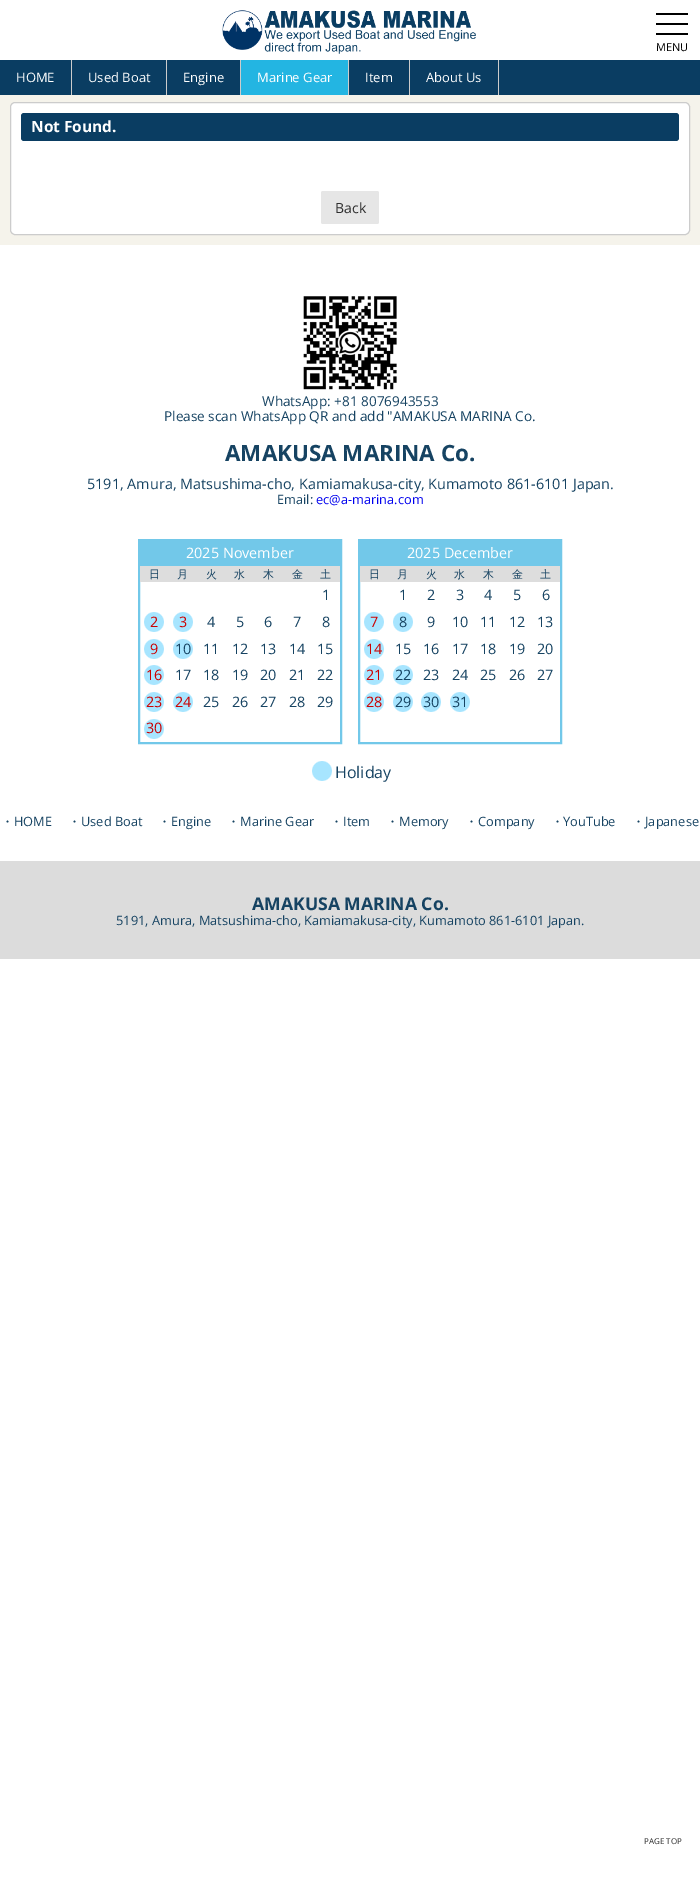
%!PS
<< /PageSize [700 1893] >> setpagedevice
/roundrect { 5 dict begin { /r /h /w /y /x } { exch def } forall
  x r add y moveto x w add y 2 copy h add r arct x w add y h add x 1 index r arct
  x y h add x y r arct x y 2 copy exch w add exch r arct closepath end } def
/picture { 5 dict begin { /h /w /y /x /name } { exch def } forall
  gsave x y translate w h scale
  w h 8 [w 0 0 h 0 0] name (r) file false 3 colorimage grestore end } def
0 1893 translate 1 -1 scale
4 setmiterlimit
1 setgray
0 0 700 1893 rectfill
0.961 0.953 0.922 setrgbcolor
0 95 700 150 rectfill
0 setgray
656 23 32 2 rectfill
656 13 32 2 rectfill
656 33 32 2 rectfill
/OpenSans-Regular [11 0 0 -11 0 0] selectfont
656 51 moveto (MENU) show
(img1.rgb) 222 10 254 44 picture
0.039 0.239 0.384 setrgbcolor
0 60 700 35 rectfill
0.8 setgray
71 60 1 35 rectfill
/OpenSans-Regular [13 0 0 -13 0 0] selectfont
1 setgray
16 82 moveto (HOME) show
0.8 setgray
166 60 1 35 rectfill
1 setgray
88 82 moveto (Used Boat) show
0.8 setgray
240 60 1 35 rectfill
1 setgray
183 82 moveto (Engine) show
0.137 0.71 0.886 setrgbcolor
241 60 107 35 rectfill
0.8 setgray
348 60 1 35 rectfill
1 setgray
257 82 moveto (Marine Gear) show
0.8 setgray
409 60 1 35 rectfill
1 setgray
365 82 moveto (Item) show
0.8 setgray
498 60 1 35 rectfill
1 setgray
426 82 moveto (About Us) show
10.5 102.5 679 132 4.5 roundrect gsave fill grestore
0.8 setgray
stroke
0.039 0.239 0.384 setrgbcolor
21 113 658 28 3 roundrect fill
/OpenSans-Bold [15.5 0 0 -15.5 0 0] selectfont
1 setgray
31 132 moveto (Not Found.) show
0.902 setgray
321 191 58 33 2 roundrect fill
/OpenSans-Regular [14 0 0 -14 0 0] selectfont
0.18 setgray
335 213 moveto (Back) show
(img2.rgb) 303 296 94 94 picture
/OpenSans-Regular [13.6 0 0 -13.6 0 0] selectfont
0.086 0.263 0.384 setrgbcolor
262 406 moveto (WhatsApp: +81 8076943553) show
164 421 moveto (Please scan WhatsApp QR and add "AMAKUSA MARINA Co.) show
/OpenSans-Bold [22.4 0 0 -22.4 0 0] selectfont
225 461 moveto (AMAKUSA MARINA Co.) show
/OpenSans-Regular [14.4 0 0 -14.4 0 0] selectfont
87 489 moveto (5191, Amura, Matsushima-cho, Kamiamakusa-city, Kumamoto 861-6101 Japan.) show
/OpenSans-Regular [12.8 0 0 -12.8 0 0] selectfont
277 504 moveto (Email:) show
0 0 0.933 setrgbcolor
316 504 moveto (ec@a-marina.com) show
0.447 0.784 0.914 setrgbcolor
2 setlinewidth
139 540 202 203 rectstroke
140 541 200 25 rectfill
/OpenSans-Regular [14.4 0 0 -14.4 0 0] selectfont
1 setgray
186 558 moveto (2025 November) show
0.867 setgray
140 566 200 16 rectfill
/WenQuanYiZenHei-Medium [11 0 0 -11 0 0] selectfont
0.086 0.263 0.384 setrgbcolor
149 578 moveto (日) show
177 578 moveto (月) show
206 578 moveto (火) show
234 578 moveto (水) show
263 578 moveto (木) show
292 578 moveto (金) show
320 578 moveto (土) show
/OpenSans-Regular [14.4 0 0 -14.4 0 0] selectfont
322 600 moveto (1) show
(img3.rgb) 144 612 20 20 picture
0.8 0 0 setrgbcolor
150 627 moveto (2) show
(img3.rgb) 173 612 20 20 picture
179 627 moveto (3) show
0.086 0.263 0.384 setrgbcolor
207 627 moveto (4) show
236 627 moveto (5) show
264 627 moveto (6) show
293 627 moveto (7) show
322 627 moveto (8) show
(img3.rgb) 144 639 20 20 picture
0.8 0 0 setrgbcolor
150 654 moveto (9) show
(img3.rgb) 173 639 20 20 picture
0.086 0.263 0.384 setrgbcolor
175 654 moveto (10) show
203 654 moveto (11) show
232 654 moveto (12) show
260 654 moveto (13) show
289 654 moveto (14) show
317 654 moveto (15) show
(img3.rgb) 144 665 20 20 picture
0.8 0 0 setrgbcolor
146 680 moveto (16) show
0.086 0.263 0.384 setrgbcolor
175 680 moveto (17) show
203 680 moveto (18) show
232 680 moveto (19) show
260 680 moveto (20) show
289 680 moveto (21) show
317 680 moveto (22) show
(img3.rgb) 144 692 20 20 picture
0.8 0 0 setrgbcolor
146 707 moveto (23) show
(img3.rgb) 173 692 20 20 picture
175 707 moveto (24) show
0.086 0.263 0.384 setrgbcolor
203 707 moveto (25) show
232 707 moveto (26) show
260 707 moveto (27) show
289 707 moveto (28) show
317 707 moveto (29) show
(img3.rgb) 144 719 20 20 picture
0.8 0 0 setrgbcolor
146 733 moveto (30) show
0.447 0.784 0.914 setrgbcolor
359 540 202 203 rectstroke
360 541 200 25 rectfill
1 setgray
407 558 moveto (2025 December) show
0.867 setgray
360 566 200 16 rectfill
/WenQuanYiZenHei-Medium [11 0 0 -11 0 0] selectfont
0.086 0.263 0.384 setrgbcolor
369 578 moveto (日) show
397 578 moveto (月) show
426 578 moveto (火) show
454 578 moveto (水) show
483 578 moveto (木) show
512 578 moveto (金) show
540 578 moveto (土) show
/OpenSans-Regular [14.4 0 0 -14.4 0 0] selectfont
399 600 moveto (1) show
427 600 moveto (2) show
456 600 moveto (3) show
484 600 moveto (4) show
513 600 moveto (5) show
542 600 moveto (6) show
(img3.rgb) 364 612 20 20 picture
0.8 0 0 setrgbcolor
370 627 moveto (7) show
(img3.rgb) 393 612 20 20 picture
0.086 0.263 0.384 setrgbcolor
399 627 moveto (8) show
427 627 moveto (9) show
452 627 moveto (10) show
480 627 moveto (11) show
509 627 moveto (12) show
537 627 moveto (13) show
(img3.rgb) 364 639 20 20 picture
0.8 0 0 setrgbcolor
366 654 moveto (14) show
0.086 0.263 0.384 setrgbcolor
395 654 moveto (15) show
423 654 moveto (16) show
452 654 moveto (17) show
480 654 moveto (18) show
509 654 moveto (19) show
537 654 moveto (20) show
(img3.rgb) 364 665 20 20 picture
0.8 0 0 setrgbcolor
366 680 moveto (21) show
(img3.rgb) 393 665 20 20 picture
0.086 0.263 0.384 setrgbcolor
395 680 moveto (22) show
423 680 moveto (23) show
452 680 moveto (24) show
480 680 moveto (25) show
509 680 moveto (26) show
537 680 moveto (27) show
(img3.rgb) 364 692 20 20 picture
0.8 0 0 setrgbcolor
366 707 moveto (28) show
(img3.rgb) 393 692 20 20 picture
0.086 0.263 0.384 setrgbcolor
395 707 moveto (29) show
(img3.rgb) 421 692 20 20 picture
423 707 moveto (30) show
(img3.rgb) 450 692 20 20 picture
452 707 moveto (31) show
(img3.rgb) 312 761 20 20 picture
/OpenSans-Regular [16 0 0 -16 0 0] selectfont
335 778 moveto (Holiday) show
/WenQuanYiZenHei-Medium [12.8 0 0 -12.8 0 0] selectfont
1 826 moveto (・) show
/OpenSans-Regular [12.8 0 0 -12.8 0 0] selectfont
14 826 moveto (HOME) show
/WenQuanYiZenHei-Medium [12.8 0 0 -12.8 0 0] selectfont
68 826 moveto (・) show
/OpenSans-Regular [12.8 0 0 -12.8 0 0] selectfont
81 826 moveto (Used Boat) show
/WenQuanYiZenHei-Medium [12.8 0 0 -12.8 0 0] selectfont
158 826 moveto (・) show
/OpenSans-Regular [12.8 0 0 -12.8 0 0] selectfont
171 826 moveto (Engine) show
/WenQuanYiZenHei-Medium [12.8 0 0 -12.8 0 0] selectfont
227 826 moveto (・) show
/OpenSans-Regular [12.8 0 0 -12.8 0 0] selectfont
240 826 moveto (Marine Gear) show
/WenQuanYiZenHei-Medium [12.8 0 0 -12.8 0 0] selectfont
330 826 moveto (・) show
/OpenSans-Regular [12.8 0 0 -12.8 0 0] selectfont
343 826 moveto (Item) show
/WenQuanYiZenHei-Medium [12.8 0 0 -12.8 0 0] selectfont
386 826 moveto (・) show
/OpenSans-Regular [12.8 0 0 -12.8 0 0] selectfont
399 826 moveto (Memory) show
/WenQuanYiZenHei-Medium [12.8 0 0 -12.8 0 0] selectfont
465 826 moveto (・) show
/OpenSans-Regular [12.8 0 0 -12.8 0 0] selectfont
478 826 moveto (Company) show
/WenQuanYiZenHei-Medium [12.8 0 0 -12.8 0 0] selectfont
551 826 moveto (・) show
/OpenSans-Regular [12.8 0 0 -12.8 0 0] selectfont
563 826 moveto (YouTube) show
/WenQuanYiZenHei-Medium [12.8 0 0 -12.8 0 0] selectfont
632 826 moveto (・) show
/OpenSans-Regular [12.8 0 0 -12.8 0 0] selectfont
645 826 moveto (Japanese) show
0.863 setgray
0 861 700 98 rectfill
/OpenSans-Bold [17.6 0 0 -17.6 0 0] selectfont
0.086 0.263 0.384 setrgbcolor
252 910 moveto (AMAKUSA MARINA Co.) show
/OpenSans-Regular [12.8 0 0 -12.8 0 0] selectfont
116 925 moveto (5191, Amura, Matsushima-cho, Kamiamakusa-city, Kumamoto 861-6101 Japan.) show
/OpenSans-Regular [8 0 0 -8 0 0] selectfont
0.18 setgray
644 1844 moveto (PAGE TOP) show
showpage
